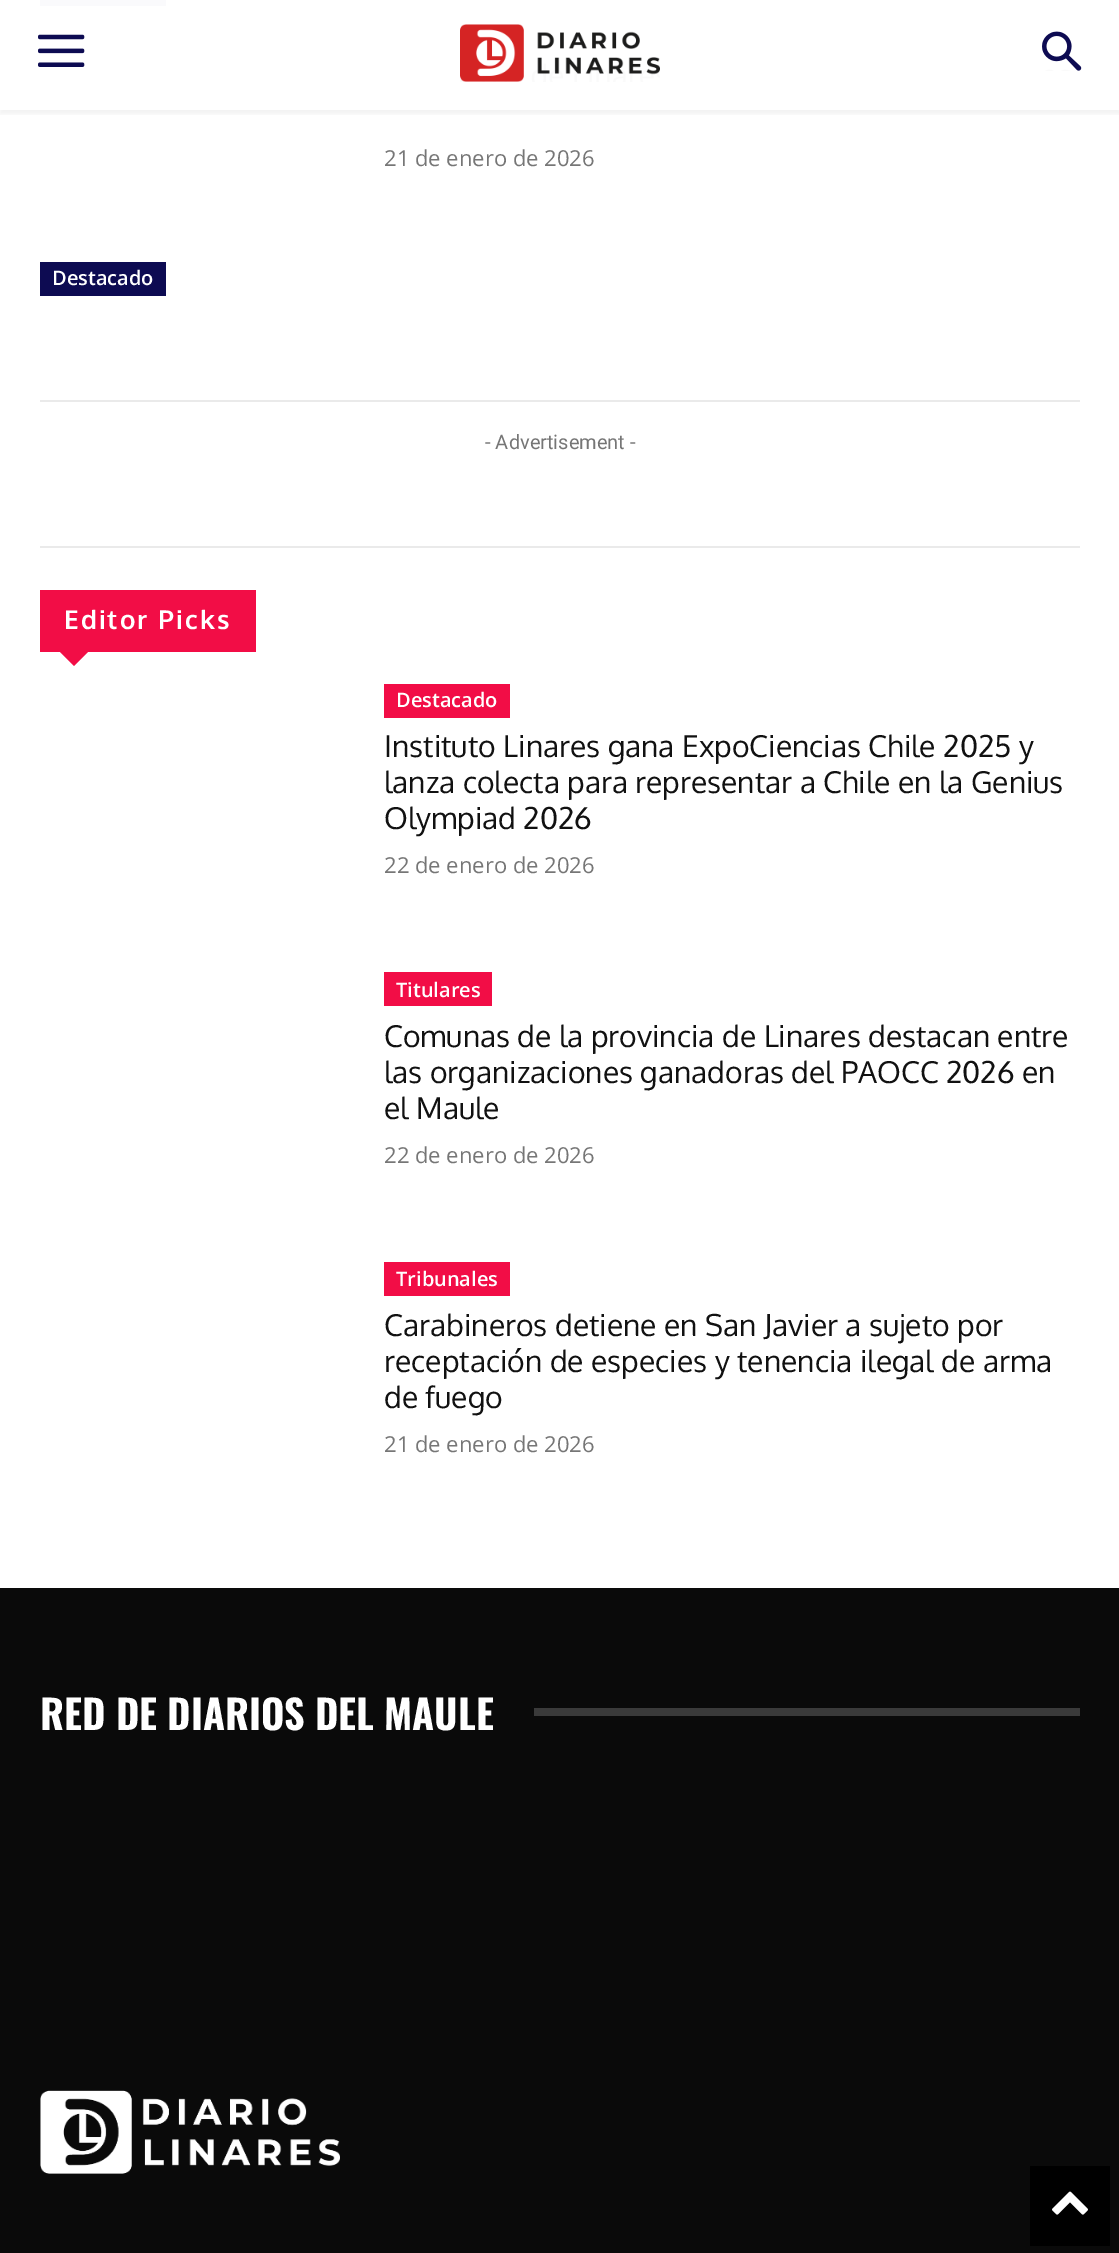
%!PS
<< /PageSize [1119 2253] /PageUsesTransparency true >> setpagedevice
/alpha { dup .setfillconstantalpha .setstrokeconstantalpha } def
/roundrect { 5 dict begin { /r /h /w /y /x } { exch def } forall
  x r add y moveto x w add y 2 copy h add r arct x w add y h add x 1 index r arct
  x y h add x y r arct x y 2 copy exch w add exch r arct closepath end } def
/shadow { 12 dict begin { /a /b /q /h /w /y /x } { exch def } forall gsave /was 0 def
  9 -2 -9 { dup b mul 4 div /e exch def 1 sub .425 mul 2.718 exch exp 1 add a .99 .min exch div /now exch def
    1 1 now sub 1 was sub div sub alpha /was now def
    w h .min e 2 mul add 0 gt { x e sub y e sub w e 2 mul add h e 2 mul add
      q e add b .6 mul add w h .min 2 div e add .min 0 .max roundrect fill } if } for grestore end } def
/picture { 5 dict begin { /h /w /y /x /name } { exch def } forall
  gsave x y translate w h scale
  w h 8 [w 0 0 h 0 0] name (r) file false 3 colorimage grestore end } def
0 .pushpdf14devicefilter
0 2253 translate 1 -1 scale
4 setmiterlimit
1 setgray
0 0 1119 2253 rectfill
(img1.rgb) 38 34 47 33 picture
(img2.rgb) 460 24 200 58 picture
(img3.rgb) 1042 31 40 40 picture
0.051 0.043 0.322 setrgbcolor
40 0 126 6 rectfill
0.98 alpha
1 setgray
40 0 126 6 rectfill
gsave
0 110 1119 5 rectclip
1 alpha
0 setgray
0 4 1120 110 0 3 0.05 shadow
grestore
/OpenSans-Regular [22 0 0 -22 0 0] selectfont
1 alpha
0.463 setgray
384 166 moveto (21 de enero de 2026) show
0.051 0.043 0.322 setrgbcolor
40 262 126 34 rectfill
/OpenSans-SemiBold [20 0 0 -20 0 0] selectfont
1 setgray
52 285 moveto (Destacado) show
0.918 setgray
40 400 1040 2 rectfill
40 546 1040 2 rectfill
/Roboto-Regular [20 0 0 -20 0 0] selectfont
0.463 setgray
485 449 moveto (- Advertisement -) show
0.949 0.051 0.275 setrgbcolor
40 590 216 62 rectfill
/Oxygen-Bold [26 0 0 -26 0 0] selectfont
1 setgray
64 629 moveto 2 0 (Editor Picks) ashow
0.949 0.051 0.275 setrgbcolor
newpath 60 652 moveto 88 652 lineto 74 666 lineto closepath fill
384 684 126 34 rectfill
/OpenSans-SemiBold [20 0 0 -20 0 0] selectfont
1 setgray
396 707 moveto (Destacado) show
/Oxygen-Regular [30 0 0 -30 0 0] selectfont
0.067 setgray
384 757 moveto (Instituto Linares gana ExpoCiencias Chile 2025 y) show
384 793 moveto (lanza colecta para representar a Chile en la Genius) show
384 829 moveto (Olympiad 2026) show
/OpenSans-Regular [22 0 0 -22 0 0] selectfont
0.463 setgray
384 873 moveto (22 de enero de 2026) show
0.949 0.051 0.275 setrgbcolor
384 972 108 34 rectfill
/OpenSans-SemiBold [20 0 0 -20 0 0] selectfont
1 setgray
396 997 moveto (Titulares) show
/Oxygen-Regular [30 0 0 -30 0 0] selectfont
0.067 setgray
384 1047 moveto (Comunas de la provincia de Linares destacan entre) show
384 1083 moveto (las organizaciones ganadoras del PAOCC 2026 en) show
384 1119 moveto (el Maule) show
/OpenSans-Regular [22 0 0 -22 0 0] selectfont
0.463 setgray
384 1163 moveto (22 de enero de 2026) show
0.949 0.051 0.275 setrgbcolor
384 1262 126 34 rectfill
/OpenSans-SemiBold [20 0 0 -20 0 0] selectfont
1 setgray
396 1286 moveto (Tribunales) show
/Oxygen-Regular [30 0 0 -30 0 0] selectfont
0.067 setgray
384 1336 moveto (Carabineros detiene en San Javier a sujeto por) show
384 1372 moveto (receptación de especies y tenencia ilegal de arma) show
384 1408 moveto (de fuego) show
/OpenSans-Regular [22 0 0 -22 0 0] selectfont
0.463 setgray
384 1452 moveto (21 de enero de 2026) show
0.039 setgray
0 1588 1119 665 rectfill
/Oswald-Bold [40 0 0 -40 0 0] selectfont
1 setgray
40 1730 moveto (RED DE DIARIOS DEL MAULE) show
0.227 setgray
534 1708 546 8 rectfill
(img4.rgb) 40 2090 300 84 picture
0 setgray
1030 2166 80 80 rectfill
(img5.rgb) 1052 2191 36 24 picture
.poppdf14devicefilter showpage
